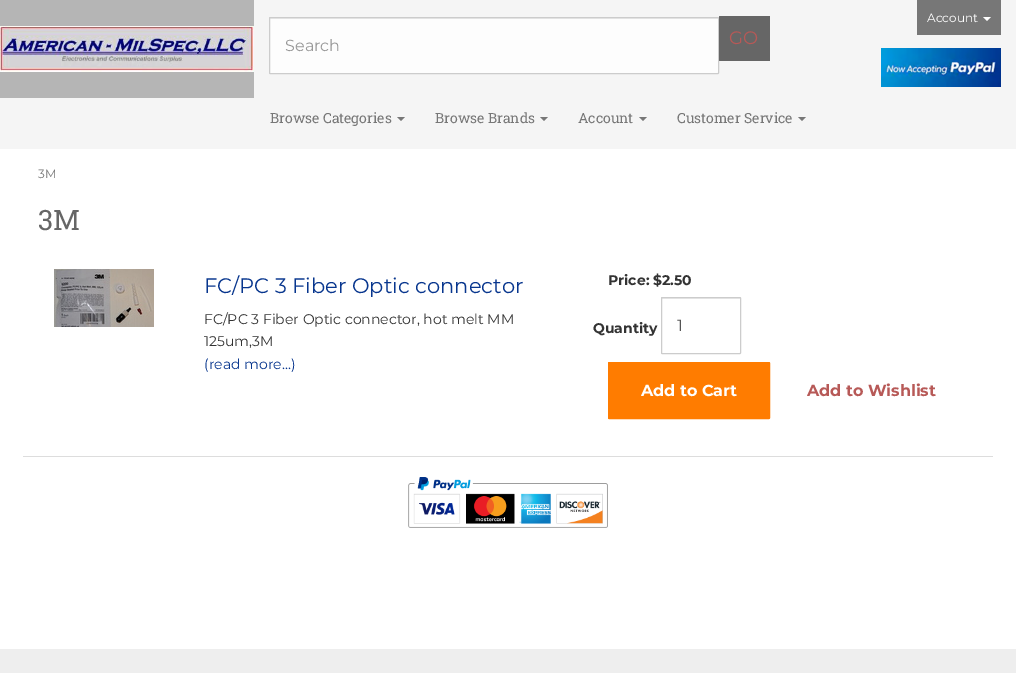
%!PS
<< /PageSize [1016 673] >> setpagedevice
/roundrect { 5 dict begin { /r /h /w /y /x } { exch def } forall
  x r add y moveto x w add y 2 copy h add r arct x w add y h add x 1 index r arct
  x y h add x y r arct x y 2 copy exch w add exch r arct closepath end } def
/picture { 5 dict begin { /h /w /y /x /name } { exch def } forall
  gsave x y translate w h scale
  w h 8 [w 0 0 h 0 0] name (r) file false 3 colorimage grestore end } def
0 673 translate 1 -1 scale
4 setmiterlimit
1 setgray
0 0 1016 673 rectfill
0.961 setgray
0 0 1016 149 rectfill
0.71 setgray
0 0 254 98 rectfill
(img1.rgb) 0 26 254 46 picture
0.467 setgray
917 0 84 35 rectfill
/Montserrat-Regular [12 0 0 -12 0 0] selectfont
1 setgray
927 22 moveto (Account) show
newpath 983 17 moveto 991 17 lineto 987 21 lineto closepath fill
(img2.rgb) 881 48 120 39 picture
0.992 setgray
269 17 450 57 1 roundrect fill
0.918 setgray
270 18 448 1 rectfill
0.8 setgray
269.5 17.5 449 56 0.5 roundrect stroke
/Montserrat-Regular [16 0 0 -16 0 0] selectfont
0.6 setgray
285 51 moveto (Search) show
0.4 setgray
719 16 51 45 1 roundrect fill
769 16 1 1 rectfill
769 60 1 1 rectfill
/Montserrat-Regular [18 0 0 -18 0 0] selectfont
0.718 0.349 0.341 setrgbcolor
729 44 moveto (GO) show
/RobotoSlab-Regular [14 0 0 -14 0 0] selectfont
0.467 setgray
270 123 moveto (Browse Categories) show
newpath 397 117 moveto 405 117 lineto 401 121 lineto closepath fill
435 123 moveto (Browse Brands) show
newpath 540 117 moveto 548 117 lineto 544 121 lineto closepath fill
578 123 moveto (Account) show
newpath 639 117 moveto 647 117 lineto 643 121 lineto closepath fill
677 123 moveto (Customer Service) show
newpath 798 117 moveto 806 117 lineto 802 121 lineto closepath fill
/Montserrat-Regular [12 0 0 -12 0 0] selectfont
38 178 moveto (3M) show
/RobotoSlab-Regular [28 0 0 -28 0 0] selectfont
0.4 setgray
38 230 moveto (3M) show
0.867 setgray
23 456 970 1 rectfill
(img3.rgb) 54 269 100 58 picture
/Montserrat-Regular [21 0 0 -21 0 0] selectfont
0.031 0.212 0.557 setrgbcolor
204 293 moveto (FC/PC 3 Fiber Optic connector) show
/Montserrat-Regular [14 0 0 -14 0 0] selectfont
0.2 setgray
204 324 moveto (FC/PC 3 Fiber Optic connector, hot melt MM) show
204 346 moveto (125um,3M) show
0.031 0.212 0.557 setrgbcolor
204 369 moveto (\(read more...\)) show
/Montserrat-Bold [14 0 0 -14 0 0] selectfont
0.2 setgray
608 285 moveto (Price: $2.50) show
593 333 moveto (Quantity) show
0.918 setgray
662 298 78 1 rectfill
0.8 setgray
661.5 297.5 79 56 0.5 roundrect stroke
/Montserrat-Regular [16 0 0 -16 0 0] selectfont
0.333 setgray
677 331 moveto (1) show
1 0.486 0 setrgbcolor
608.5 362.5 161 56 0.5 roundrect gsave fill grestore
stroke
/Montserrat-Bold [16 0 0 -16 0 0] selectfont
1 setgray
641 396 moveto (Add to Cart) show
0.718 0.349 0.341 setrgbcolor
807 396 moveto (Add to Wishlist) show
(img4.rgb) 408 477 200 51 picture
0.933 setgray
0 649 1016 24 rectfill
showpage
